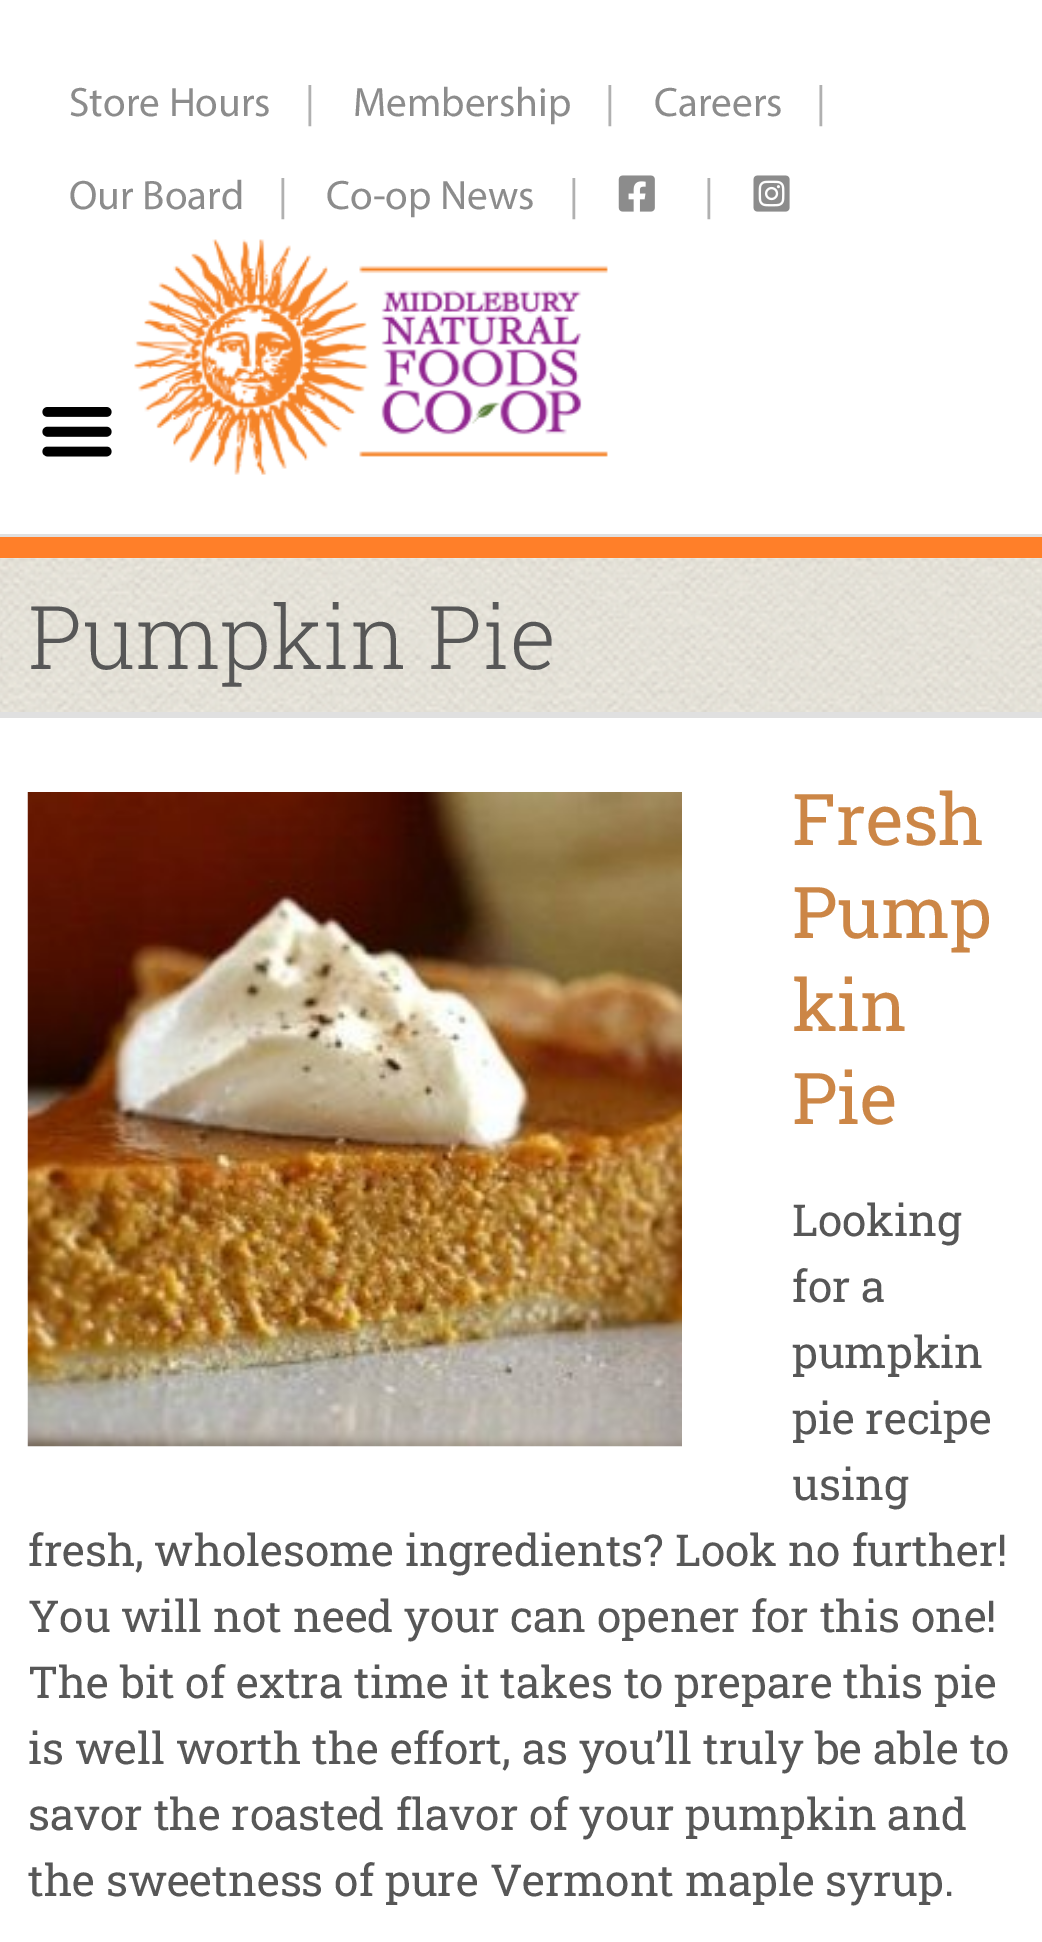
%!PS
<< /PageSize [1042 1942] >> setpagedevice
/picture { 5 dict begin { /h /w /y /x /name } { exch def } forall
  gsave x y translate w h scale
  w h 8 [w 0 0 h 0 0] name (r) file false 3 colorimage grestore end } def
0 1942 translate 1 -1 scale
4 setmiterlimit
1 setgray
0 0 1042 1942 rectfill
/Myriad-Regular [41.25 0 0 -41.25 0 0] selectfont
0.549 setgray
69 116 moveto (Store Hours) show
0.69 setgray
305 116 moveto (|) show
0.549 setgray
353 116 moveto (Membership) show
0.69 setgray
605 116 moveto (|) show
0.549 setgray
654 116 moveto (Careers) show
0.69 setgray
816 116 moveto (|) show
0.549 setgray
69 209 moveto (Our Board) show
0.69 setgray
278 209 moveto (|) show
0.549 setgray
326 209 moveto (Co-op News) show
0.69 setgray
569 209 moveto (|) show
(img1.rgb) 618 175 37 37 picture
704 209 moveto (|) show
(img2.rgb) 753 175 37 37 picture
1 0.498 0.161 setrgbcolor
0 537 1042 21 rectfill
(img3.rgb) 42 407 70 50 picture
(img4.rgb) 134 239 474 236 picture
0.878 setgray
0 534 1042 3 rectfill
(img5.rgb) 0 558 1042 154 picture
0 712 1042 6 rectfill
/RobotoSlab-Light [88 0 0 -88 0 0] selectfont
0.341 setgray
28 669 moveto (Pumpkin Pie) show
(img6.rgb) 27 792 655 655 picture
/RobotoSlab-Regular [71.5 0 0 -71.5 0 0] selectfont
0.8 0.525 0.275 setrgbcolor
792 845 moveto (Fresh) show
792 938 moveto (Pump) show
792 1031 moveto (kin) show
792 1124 moveto (Pie) show
/RobotoSlab-Regular [44 0 0 -44 0 0] selectfont
0.341 setgray
792 1236 moveto (Looking) show
792 1302 moveto (for a) show
792 1368 moveto (pumpkin) show
792 1434 moveto (pie recipe) show
792 1500 moveto (using) show
28 1566 moveto (fresh, wholesome ingredients? Look no further!) show
28 1632 moveto (You will not need your can opener for this one!) show
28 1698 moveto (The bit of extra time it takes to prepare this pie) show
28 1764 moveto (is well worth the effort, as you’ll truly be able to) show
28 1830 moveto (savor the roasted flavor of your pumpkin and) show
28 1896 moveto (the sweetness of pure Vermont maple syrup.) show
showpage
